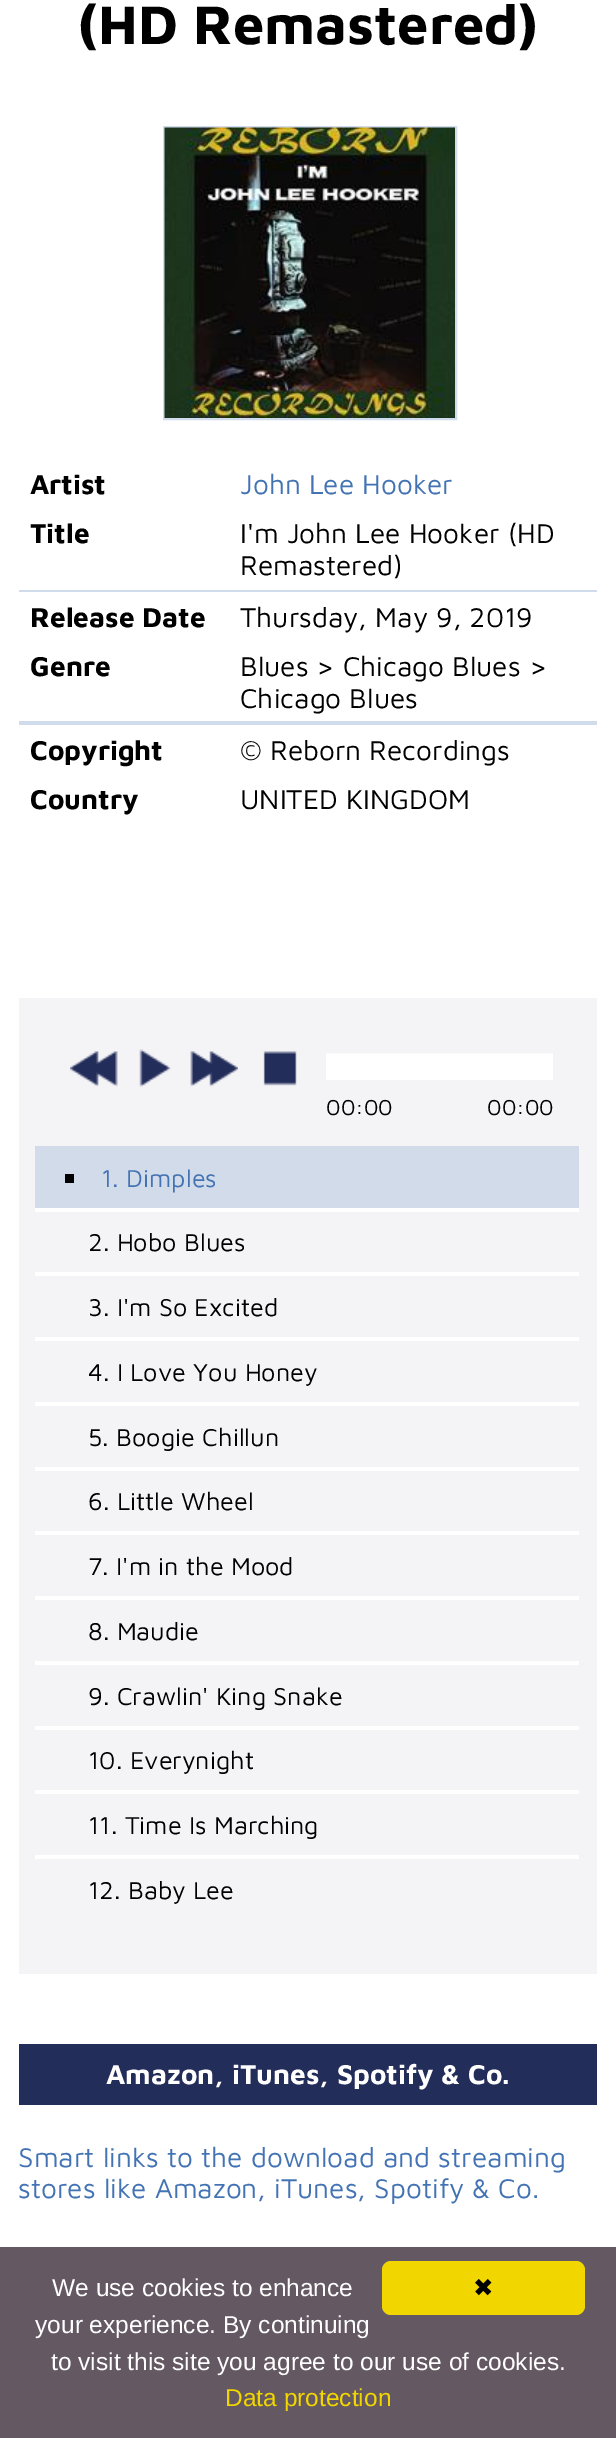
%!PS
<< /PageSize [616 2438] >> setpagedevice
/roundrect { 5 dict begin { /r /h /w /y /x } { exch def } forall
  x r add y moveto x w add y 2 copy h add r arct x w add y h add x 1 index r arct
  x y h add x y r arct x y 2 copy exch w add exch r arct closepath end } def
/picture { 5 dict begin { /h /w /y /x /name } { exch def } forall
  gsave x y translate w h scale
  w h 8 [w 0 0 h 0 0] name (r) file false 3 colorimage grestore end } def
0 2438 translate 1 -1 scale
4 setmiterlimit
1 setgray
0 0 616 2438 rectfill
/MavenPro-Bold [56 0 0 -56 0 0] selectfont
0 setgray
78 44 moveto (\(HD Remastered\)) show
0.816 0.863 0.925 setrgbcolor
2 setlinewidth
164 127 292 292 rectstroke
(img1.rgb) 164 127 291 291 picture
/MavenPro-Bold [28 0 0 -28 0 0] selectfont
0 setgray
30 494 moveto (Artist) show
/MavenPro-Regular [28 0 0 -28 0 0] selectfont
0.263 0.451 0.702 setrgbcolor
240 494 moveto (John Lee Hooker) show
/MavenPro-Bold [28 0 0 -28 0 0] selectfont
0 setgray
30 543 moveto (Title) show
/MavenPro-Regular [28 0 0 -28 0 0] selectfont
240 543 moveto (I'm John Lee Hooker \(HD) show
240 575 moveto (Remastered\)) show
0.816 0.863 0.925 setrgbcolor
19 590 578 2 rectfill
/MavenPro-Bold [28 0 0 -28 0 0] selectfont
0 setgray
30 627 moveto (Release Date) show
/MavenPro-Regular [28 0 0 -28 0 0] selectfont
240 627 moveto (Thursday, May 9, 2019) show
/MavenPro-Bold [28 0 0 -28 0 0] selectfont
30 676 moveto (Genre) show
/MavenPro-Regular [28 0 0 -28 0 0] selectfont
240 676 moveto (Blues > Chicago Blues >) show
240 708 moveto (Chicago Blues) show
0.816 0.863 0.925 setrgbcolor
19 721 578 4 rectfill
/MavenPro-Bold [28 0 0 -28 0 0] selectfont
0 setgray
30 760 moveto (Copyright) show
/MavenPro-Regular [28 0 0 -28 0 0] selectfont
240 760 moveto (© Reborn Recordings) show
/MavenPro-Bold [28 0 0 -28 0 0] selectfont
30 809 moveto (Country) show
/MavenPro-Regular [28 0 0 -28 0 0] selectfont
240 809 moveto (UNITED KINGDOM) show
0.957 0.957 0.969 setrgbcolor
19 998 578 976 rectfill
(img2.rgb) 70 1051 48 36 picture
(img3.rgb) 139 1049 32 38 picture
(img4.rgb) 190 1051 48 36 picture
(img5.rgb) 263 1051 34 35 picture
1 setgray
326 1054 227 26 rectfill
0.98 0.98 0.984 setrgbcolor
326 1053 227 1 rectfill
/MavenPro-Regular [22.5 0 0 -22.5 0 0] selectfont
0 setgray
326 1115 moveto (00:00) show
487 1115 moveto (00:00) show
0.824 0.859 0.918 setrgbcolor
35 1146 544 62 rectfill
1 setgray
35 1208 544 4 rectfill
0 setgray
65 1174 9 9 rectfill
/MavenPro-Regular [25.25 0 0 -25.25 0 0] selectfont
0.263 0.451 0.702 setrgbcolor
101 1187 moveto (1. Dimples) show
1 setgray
35 1272 544 4 rectfill
0 setgray
88 1251 moveto (2. Hobo Blues) show
1 setgray
35 1337 544 4 rectfill
0 setgray
88 1316 moveto (3. I'm So Excited) show
1 setgray
35 1402 544 4 rectfill
0 setgray
88 1381 moveto (4. I Love You Honey) show
1 setgray
35 1467 544 4 rectfill
0 setgray
88 1446 moveto (5. Boogie Chillun) show
1 setgray
35 1531 544 4 rectfill
0 setgray
88 1510 moveto (6. Little Wheel) show
1 setgray
35 1596 544 4 rectfill
0 setgray
88 1575 moveto (7. I'm in the Mood) show
1 setgray
35 1661 544 4 rectfill
0 setgray
88 1640 moveto (8. Maudie) show
1 setgray
35 1726 544 4 rectfill
0 setgray
88 1705 moveto (9. Crawlin' King Snake) show
1 setgray
35 1790 544 4 rectfill
0 setgray
88 1769 moveto (10. Everynight) show
1 setgray
35 1855 544 4 rectfill
0 setgray
88 1834 moveto (11. Time Is Marching) show
88 1899 moveto (12. Baby Lee) show
0.137 0.176 0.353 setrgbcolor
19 2044 578 61 rectfill
/MavenPro-Bold [28 0 0 -28 0 0] selectfont
1 setgray
106 2084 moveto (Amazon, iTunes, Spotify & Co.) show
/MavenPro-Regular [28 0 0 -28 0 0] selectfont
0.263 0.451 0.702 setrgbcolor
18 2167 moveto (Smart links to the download and streaming) show
18 2198 moveto (stores like Amazon, iTunes, Spotify & Co.) show
0.392 0.345 0.384 setrgbcolor
0 2247 616 191 rectfill
/LiberationSans-Regular [24.5 0 0 -24.5 0 0] selectfont
1 setgray
52 2296 moveto (We use cookies to enhance) show
35 2333 moveto (your experience. By continuing) show
51 2370 moveto (to visit this site you agree to our use of cookies.) show
0.945 0.839 0 setrgbcolor
225 2406 moveto (Data protection) show
382 2261 203 54 9 roundrect fill
/DejaVuSans-Regular [24.5 0 0 -24.5 0 0] selectfont
0 setgray
473 2296 moveto (✖) show
showpage
